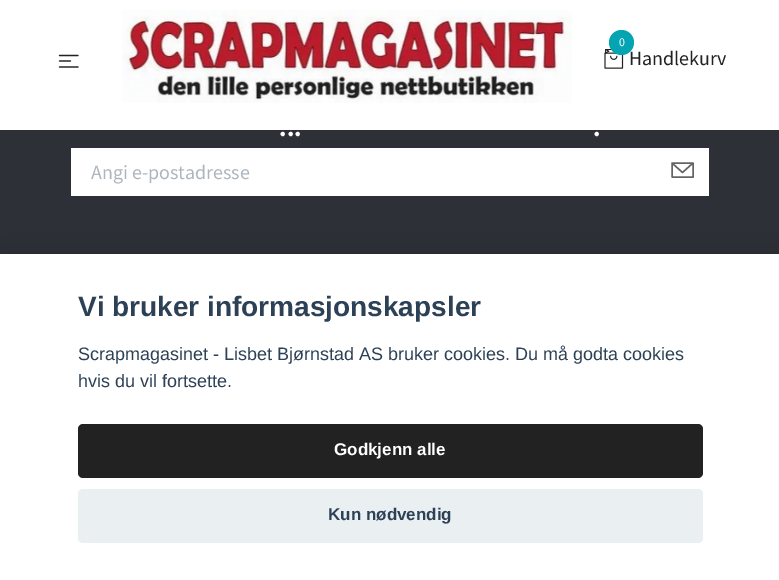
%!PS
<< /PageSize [779 580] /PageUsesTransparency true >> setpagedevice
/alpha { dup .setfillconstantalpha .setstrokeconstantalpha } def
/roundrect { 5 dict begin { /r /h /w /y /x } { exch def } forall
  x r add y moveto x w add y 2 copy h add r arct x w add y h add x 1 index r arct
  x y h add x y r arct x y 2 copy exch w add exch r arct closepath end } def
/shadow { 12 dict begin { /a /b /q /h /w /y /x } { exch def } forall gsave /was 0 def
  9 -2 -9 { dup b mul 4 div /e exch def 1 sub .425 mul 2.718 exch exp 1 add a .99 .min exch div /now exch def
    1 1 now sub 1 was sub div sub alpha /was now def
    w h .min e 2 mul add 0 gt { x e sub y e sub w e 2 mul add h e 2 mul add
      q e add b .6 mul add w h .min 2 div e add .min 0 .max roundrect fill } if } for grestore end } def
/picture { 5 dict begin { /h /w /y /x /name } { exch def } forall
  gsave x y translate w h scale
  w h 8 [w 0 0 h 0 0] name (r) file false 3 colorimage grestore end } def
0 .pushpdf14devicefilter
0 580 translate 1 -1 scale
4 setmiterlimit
0.18 0.188 0.216 setrgbcolor
0 0 779 580 rectfill
1 setgray
71 148 638 48 rectfill
0.133 setgray
0 0 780 130 0 10 0.15 shadow
1 setgray
0 0 779 130 rectfill
0.133 setgray
1.2 setlinewidth
1 setlinecap
1 setlinejoin
newpath 59.5 55.5 moveto 78 55.5 lineto 59.5 61 moveto 70.5 61 lineto 59.5 67 moveto 78 67 lineto stroke
(img1.rgb) 122 10 450 93 picture
(img2.rgb) 604 49 20 20 picture
/SourceSansPro-Regular [20 0 0 -20 0 0] selectfont
629 65 moveto (Handlekurv) show
0.016 0.643 0.702 setrgbcolor
newpath 621.5 42.5 12.5 0 360 arc closepath fill
/SourceSansPro-Regular [12 0 0 -12 0 0] selectfont
1 setgray
619 46 moveto (0) show
/SourceSansPro-Bold [25 0 0 -25 0 0] selectfont
279 136 moveto (...) show
593 136 moveto (.) show
/SourceSansPro-Regular [20 0 0 -20 0 0] selectfont
0.678 0.71 0.741 setrgbcolor
91 179 moveto (Angi e-postadresse) show
0.392 setgray
1.4 setlinewidth
newpath 672 163 moveto 682.5 172.5 lineto 693 163 lineto 672 163 moveto 693 163 lineto 693 177 lineto 672 177 lineto closepath stroke
0.008 0.008 0.012 setrgbcolor
0 266 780 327 0 19 0.28 shadow
1 setgray
0 254 779 326 rectfill
/LiberationSans-Bold [28 0 0 -28 0 0] selectfont
0.176 0.255 0.337 setrgbcolor
78 316 moveto (Vi bruker informasjonskapsler) show
/LiberationSans-Regular [18 0 0 -18 0 0] selectfont
78 360 moveto (Scrapmagasinet - Lisbet Bjørnstad AS bruker cookies. Du må godta cookies) show
78 387 moveto (hvis du vil fortsette.) show
0.133 setgray
78 424 625 54 5 roundrect fill
/LiberationSans-Bold [17 0 0 -17 0 0] selectfont
1 setgray
334 455 moveto (Godkjenn alle) show
0.918 0.937 0.949 setrgbcolor
78 489 625 54 5 roundrect fill
0.176 0.255 0.337 setrgbcolor
328 520 moveto (Kun nødvendig) show
.poppdf14devicefilter showpage
